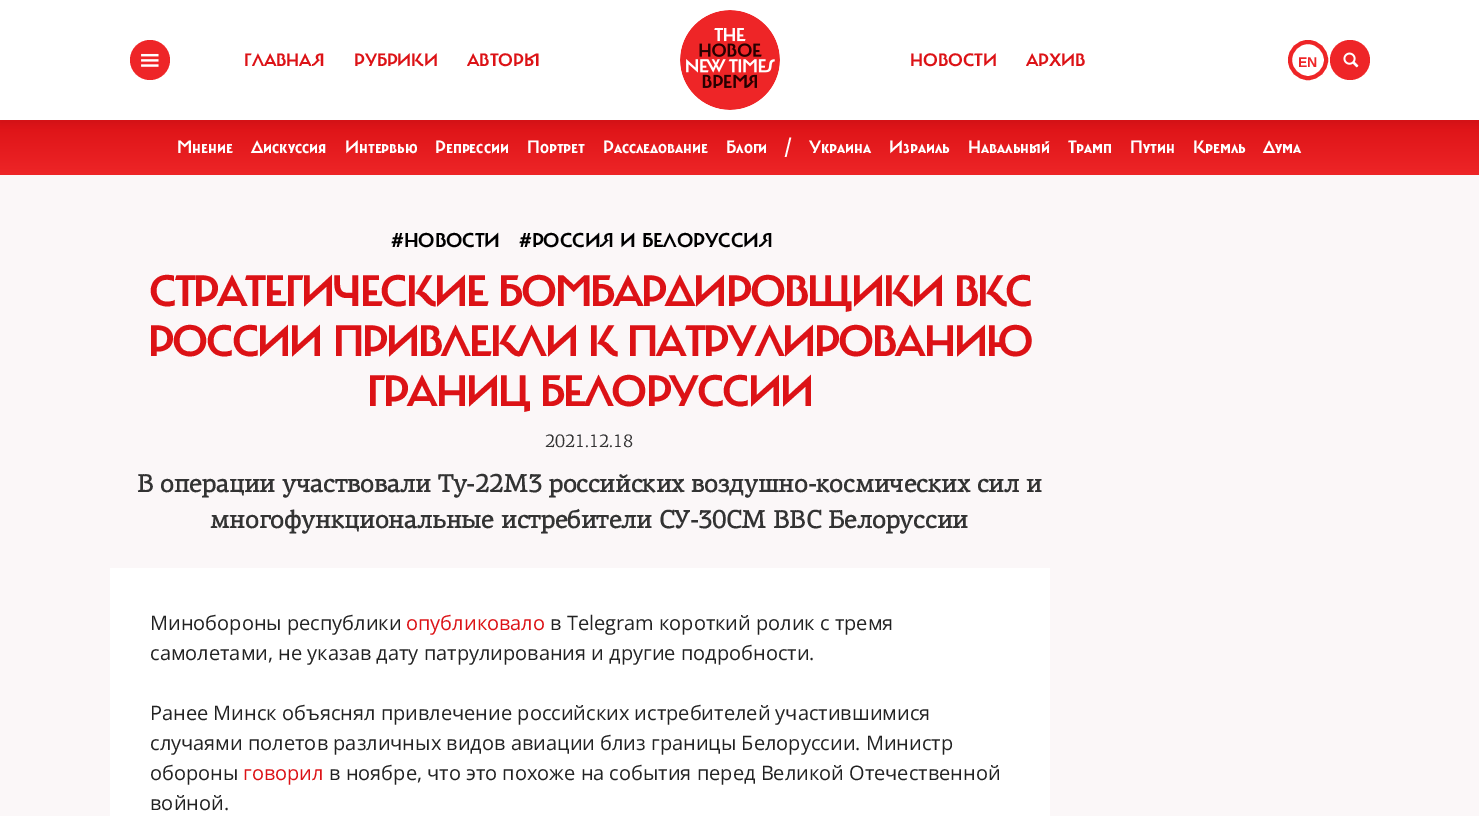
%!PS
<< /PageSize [1479 816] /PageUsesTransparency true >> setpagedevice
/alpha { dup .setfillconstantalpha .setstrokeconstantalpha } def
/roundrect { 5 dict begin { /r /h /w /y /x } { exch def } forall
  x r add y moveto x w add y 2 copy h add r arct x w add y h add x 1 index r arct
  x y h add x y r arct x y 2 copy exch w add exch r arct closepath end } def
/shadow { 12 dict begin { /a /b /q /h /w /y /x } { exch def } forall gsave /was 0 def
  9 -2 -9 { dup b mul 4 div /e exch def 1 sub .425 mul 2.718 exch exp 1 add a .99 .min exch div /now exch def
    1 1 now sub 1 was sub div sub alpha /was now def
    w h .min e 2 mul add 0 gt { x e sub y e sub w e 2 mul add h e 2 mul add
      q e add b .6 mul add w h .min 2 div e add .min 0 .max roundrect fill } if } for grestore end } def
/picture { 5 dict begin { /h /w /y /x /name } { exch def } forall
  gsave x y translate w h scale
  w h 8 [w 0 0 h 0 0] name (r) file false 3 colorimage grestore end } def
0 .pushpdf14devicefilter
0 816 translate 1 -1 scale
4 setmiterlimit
0.984 0.969 0.973 setrgbcolor
0 0 1479 816 rectfill
gsave newpath 0 120 moveto 1479 120 lineto 1479 175 lineto 0 175 lineto closepath clip newpath
<< /ShadingType 2 /ColorSpace /DeviceRGB /Coords [740 175 740 120] /Extend [true true] /Function << /FunctionType 2 /Domain [0 1] /C0 [0.933 0.145 0.153] /C1 [0.863 0.071 0.086] /N 1 >> >> shfill grestore
0.11 setgray
0 4 1479 120 0 3 0.05 shadow
1 setgray
0 0 1479 120 rectfill
0.933 0.145 0.153 setrgbcolor
newpath 150 60 20 0 360 arc closepath fill
(img1.rgb) 141 53 18 14 picture
/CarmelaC-Regular [18 0 0 -18 0 0] selectfont
0.863 0.071 0.086 setrgbcolor
244 66 moveto (ГЛАВНАЯ) show
354 66 moveto (РУБРИКИ) show
467 66 moveto (АВТОРЫ) show
(img2.rgb) 680 10 100 100 picture
910 66 moveto (НОВОСТИ) show
1026 66 moveto (АРХИВ) show
0.933 0.145 0.153 setrgbcolor
4 setlinewidth
newpath 1308 60 18 0 360 arc closepath stroke
/LiberationSans-Bold [14 0 0 -14 0 0] selectfont
1298 67 moveto (EN) show
newpath 1350 60 20 0 360 arc closepath fill
(img3.rgb) 1343 52 16 16 picture
/CarmelaC-Regular [18 0 0 -18 0 0] selectfont
1 setgray
177 153 moveto (Мнение) show
251 153 moveto (Дискуссия) show
345 153 moveto (Интервью) show
435 153 moveto (Репрессии) show
527 153 moveto (Портрет) show
603 153 moveto (Расследование) show
726 153 moveto (Блоги) show
785 153 moveto (/) show
809 153 moveto (Украина) show
889 153 moveto (Израиль) show
968 153 moveto (Навальный) show
1068 153 moveto (Трамп) show
1130 153 moveto (Путин) show
1193 153 moveto (Кремль) show
1263 153 moveto (Дума) show
/CarmelaC-Regular [20 0 0 -20 0 0] selectfont
0 setgray
391 247 moveto (#НОВОСТИ) show
519 247 moveto (#РОССИЯ И БЕЛОРУССИЯ) show
/CarmelaC-Regular [44 0 0 -44 0 0] selectfont
0.863 0.071 0.086 setrgbcolor
149 306 moveto -2 0 (СТРАТЕГИЧЕСКИЕ БОМБАРДИРОВЩИКИ ВКС) ashow
148 356 moveto -2 0 (РОССИИ ПРИВЛЕКЛИ К ПАТРУЛИРОВАНИЮ) ashow
367 406 moveto -2 0 (ГРАНИЦ БЕЛОРУССИИ) ashow
/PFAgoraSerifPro-Regular [18 0 0 -18 0 0] selectfont
0.2 setgray
545 447 moveto (2021.12.18) show
/PFAgoraSerifPro-Bold [25 0 0 -25 0 0] selectfont
137 492 moveto (В операции участвовали Ту-22М3 российских воздушно-космических сил и) show
210 528 moveto (многофункциональные истребители СУ-30СМ ВВС Белоруссии) show
1 setgray
110 568 940 248 rectfill
/OpenSans-Regular [20 0 0 -20 0 0] selectfont
0.133 setgray
150 630 moveto (Минобороны республики) show
0.863 0.071 0.086 setrgbcolor
406 630 moveto (опубликовало) show
0.133 setgray
550 630 moveto (в Telegram короткий ролик с тремя) show
150 660 moveto (самолетами, не указав дату патрулирования и другие подробности.) show
150 720 moveto (Ранее Минск объяснял привлечение российских истребителей участившимися) show
150 750 moveto (случаями полетов различных видов авиации близ границы Белоруссии. Министр) show
150 780 moveto (обороны) show
0.863 0.071 0.086 setrgbcolor
243 780 moveto (говорил) show
0.133 setgray
329 780 moveto (в ноябре, что это похоже на события перед Великой Отечественной) show
150 810 moveto (войной.) show
.poppdf14devicefilter showpage
